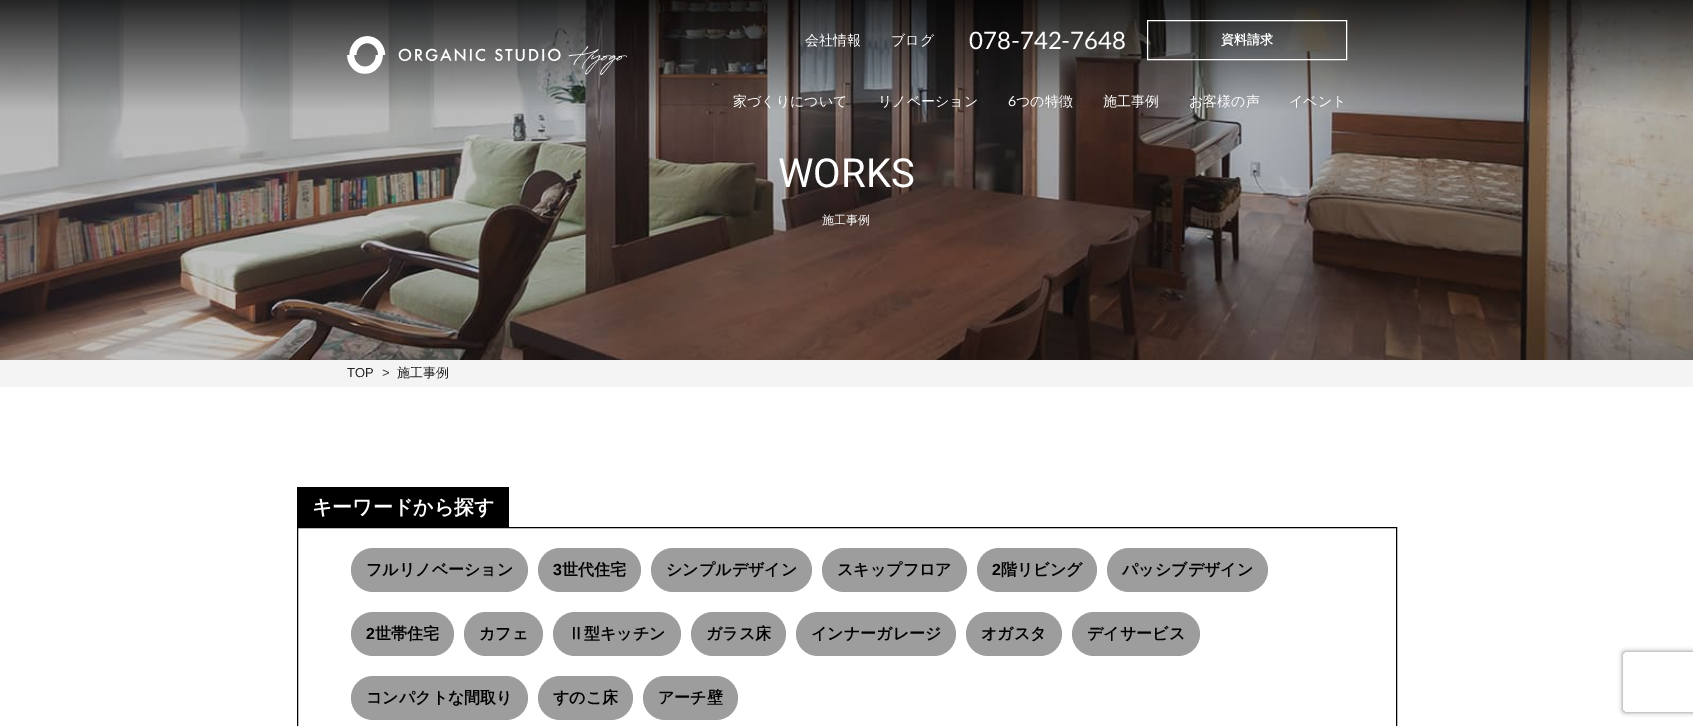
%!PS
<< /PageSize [1693 726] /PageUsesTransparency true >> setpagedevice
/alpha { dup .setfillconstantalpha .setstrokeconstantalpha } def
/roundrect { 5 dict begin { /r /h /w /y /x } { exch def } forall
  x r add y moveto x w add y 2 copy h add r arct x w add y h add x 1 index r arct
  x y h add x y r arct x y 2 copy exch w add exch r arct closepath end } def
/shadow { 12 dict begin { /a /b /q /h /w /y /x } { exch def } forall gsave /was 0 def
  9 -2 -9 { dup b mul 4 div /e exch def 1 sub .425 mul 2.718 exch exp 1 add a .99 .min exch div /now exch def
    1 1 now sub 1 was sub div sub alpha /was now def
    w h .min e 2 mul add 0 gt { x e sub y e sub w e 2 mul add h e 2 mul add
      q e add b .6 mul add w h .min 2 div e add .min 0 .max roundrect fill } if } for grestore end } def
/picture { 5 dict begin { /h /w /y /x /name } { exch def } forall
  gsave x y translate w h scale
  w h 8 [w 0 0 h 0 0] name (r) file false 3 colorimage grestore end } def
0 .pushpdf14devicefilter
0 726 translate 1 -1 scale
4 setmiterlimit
1 setgray
0 0 1693 726 rectfill
(img2.rgb) 0 0 1693 360 picture
(img1.rgb) 347 36 280 39 picture
/WenQuanYiZenHei-Medium [14 0 0 -14 0 0] selectfont
805 45 moveto (会社情報) show
891 45 moveto (ブログ) show
/Lato-Regular [24 0 0 -24 0 0] selectfont
969 49 moveto (078-742-7648) show
1147.5 20.5 199 39 rectstroke
/WenQuanYiZenHei-Bold [13 0 0 -13 0 0] selectfont
1221 44 moveto (資料請求) show
/WenQuanYiZenHei-Medium [14 0 0 -14 0 0] selectfont
733 106 moveto (家づくりについて) show
878 106 moveto (リノベーション) show
/Lato-Regular [14 0 0 -14 0 0] selectfont
1008 106 moveto (6) show
/WenQuanYiZenHei-Medium [14 0 0 -14 0 0] selectfont
1016 106 moveto (つの特徴) show
1103 106 moveto (施工事例) show
1189 106 moveto (お客様の声) show
1289 106 moveto (イベント) show
/Roboto-Regular [40 0 0 -40 0 0] selectfont
778 187 moveto (WORKS) show
/WenQuanYiZenHei-Medium [12 0 0 -12 0 0] selectfont
822 224 moveto (施工事例) show
0.957 setgray
0 360 1693 27 rectfill
/LiberationSans-Regular [13 0 0 -13 0 0] selectfont
0.133 setgray
347 377 moveto (TOP) show
0.2 setgray
382 377 moveto (>) show
/WenQuanYiZenHei-Medium [13 0 0 -13 0 0] selectfont
0.133 setgray
397 377 moveto (施工事例) show
0 setgray
297 487 212 40 rectfill
/WenQuanYiZenHei-Bold [20 0 0 -20 0 0] selectfont
1 setgray
312 514 moveto (キーワードから探す) show
0 setgray
297.5 527.5 1099 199 rectstroke
0.616 setgray
351 548 177 44 22 roundrect fill
/WenQuanYiZenHei-Bold [16 0 0 -16 0 0] selectfont
0 setgray
366 575 moveto (フルリノベーション) show
0.616 setgray
538 548 103 44 22 roundrect fill
/LiberationSans-Bold [16 0 0 -16 0 0] selectfont
0 setgray
553 575 moveto (3) show
/WenQuanYiZenHei-Bold [16 0 0 -16 0 0] selectfont
562 575 moveto (世代住宅) show
0.616 setgray
651 548 161 44 22 roundrect fill
0 setgray
666 575 moveto (シンプルデザイン) show
0.616 setgray
822 548 145 44 22 roundrect fill
0 setgray
837 575 moveto (スキップフロア) show
0.616 setgray
977 548 120 44 22 roundrect fill
/LiberationSans-Bold [16 0 0 -16 0 0] selectfont
0 setgray
992 575 moveto (2) show
/WenQuanYiZenHei-Bold [16 0 0 -16 0 0] selectfont
1001 575 moveto (階リビング) show
0.616 setgray
1107 548 161 44 22 roundrect fill
0 setgray
1122 575 moveto (パッシブデザイン) show
0.616 setgray
351 612 103 44 22 roundrect fill
/LiberationSans-Bold [16 0 0 -16 0 0] selectfont
0 setgray
366 639 moveto (2) show
/WenQuanYiZenHei-Bold [16 0 0 -16 0 0] selectfont
375 639 moveto (世帯住宅) show
0.616 setgray
464 612 79 44 22 roundrect fill
0 setgray
479 639 moveto (カフェ) show
0.616 setgray
553 612 128 44 22 roundrect fill
0 setgray
568 639 moveto (Ⅱ型キッチン) show
0.616 setgray
691 612 95 44 22 roundrect fill
0 setgray
706 639 moveto (ガラス床) show
0.616 setgray
796 612 160 44 22 roundrect fill
0 setgray
811 639 moveto (インナーガレージ) show
0.616 setgray
966 612 96 44 22 roundrect fill
0 setgray
981 639 moveto (オガスタ) show
0.616 setgray
1072 612 128 44 22 roundrect fill
0 setgray
1087 639 moveto (デイサービス) show
0.616 setgray
351 676 177 44 22 roundrect fill
0 setgray
366 703 moveto (コンパクトな間取り) show
0.616 setgray
538 676 95 44 22 roundrect fill
0 setgray
553 703 moveto (すのこ床) show
0.616 setgray
643 676 95 44 22 roundrect fill
0 setgray
658 703 moveto (アーチ壁) show
gsave
newpath 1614 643 moveto 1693 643 lineto 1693 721 lineto 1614 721 lineto closepath 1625 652 moveto 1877 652 lineto 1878 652 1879 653 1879 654 curveto 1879 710 lineto 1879 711 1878 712 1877 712 curveto 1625 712 lineto 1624 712 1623 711 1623 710 curveto 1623 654 lineto 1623 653 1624 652 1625 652 curveto closepath eoclip newpath
0.502 setgray
1623 652 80 60 2 2.5 1 shadow
grestore
.poppdf14devicefilter showpage
